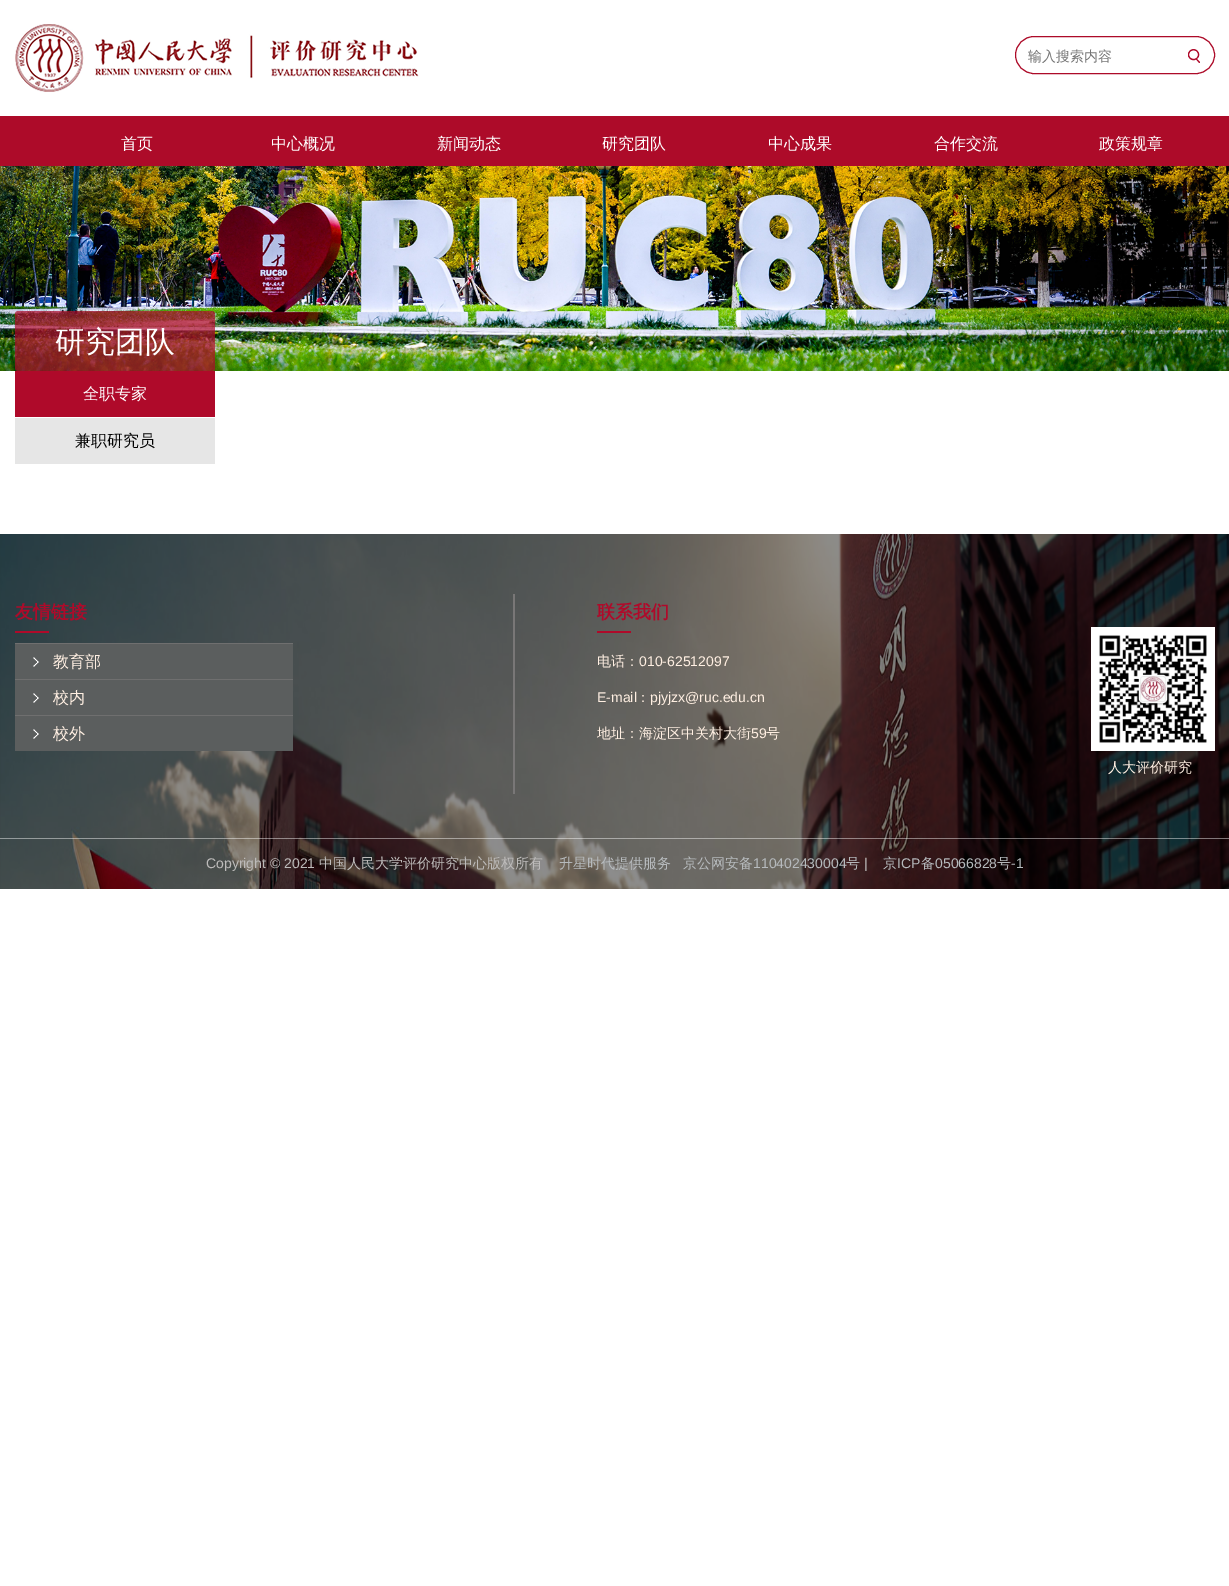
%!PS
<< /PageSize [1229 1586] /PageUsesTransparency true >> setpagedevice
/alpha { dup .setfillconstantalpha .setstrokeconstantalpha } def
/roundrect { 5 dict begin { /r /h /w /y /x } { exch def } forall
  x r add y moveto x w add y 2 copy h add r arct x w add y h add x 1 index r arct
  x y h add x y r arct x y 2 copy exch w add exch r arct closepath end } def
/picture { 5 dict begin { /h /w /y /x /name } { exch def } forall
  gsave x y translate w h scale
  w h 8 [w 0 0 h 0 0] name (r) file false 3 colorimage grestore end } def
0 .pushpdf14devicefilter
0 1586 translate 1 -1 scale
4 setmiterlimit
1 setgray
0 0 1229 1586 rectfill
(img1.rgb) 15 24 404 68 picture
0.678 0.043 0.161 setrgbcolor
1015.5 36.5 199 37 18.5 roundrect stroke
gsave
1028 48 156 18 rectclip
/WenQuanYiZenHei-Medium [14 0 0 -14 0 0] selectfont
0.459 setgray
1028 61 moveto (输入搜索内容) show
grestore
(img2.rgb) 1188 49 12 14 picture
0 116 1229 50 rectfill
/WenQuanYiZenHei-Medium [16 0 0 -16 0 0] selectfont
1 setgray
121 149 moveto (首页) show
271 149 moveto (中心概况) show
437 149 moveto (新闻动态) show
602 149 moveto (研究团队) show
768 149 moveto (中心成果) show
934 149 moveto (合作交流) show
1099 149 moveto (政策规章) show
(img3.rgb) 0 166 1229 205 picture
0.7 alpha
0.682 0.039 0.169 setrgbcolor
15 311 200 60 3 roundrect fill
/WenQuanYiZenHei-Medium [30 0 0 -30 0 0] selectfont
1 alpha
1 setgray
55 352 moveto (研究团队) show
0.686 0.039 0.165 setrgbcolor
15 371 200 46 rectfill
/WenQuanYiZenHei-Medium [16 0 0 -16 0 0] selectfont
1 setgray
83 399 moveto (全职专家) show
0.902 setgray
15 418 200 46 rectfill
0 setgray
75 446 moveto (兼职研究员) show
(img4.rgb) 0 534 1229 355 picture
0.475 0.467 0.467 setrgbcolor
513 594 2 200 rectfill
/WenQuanYiZenHei-Bold [18 0 0 -18 0 0] selectfont
0.686 0.039 0.165 setrgbcolor
15 618 moveto (友情链接) show
15 631 34 2 rectfill
0.357 0.369 0.369 setrgbcolor
15 644 278 35 rectfill
(img5.rgb) 33 657 6 10 picture
0.435 setgray
15 643 278 1 rectfill
/WenQuanYiZenHei-Medium [16 0 0 -16 0 0] selectfont
1 0.937 0.886 setrgbcolor
53 667 moveto (教育部) show
0.357 0.369 0.369 setrgbcolor
15 680 278 35 rectfill
(img5.rgb) 33 693 6 10 picture
0.435 setgray
15 679 278 1 rectfill
1 0.937 0.886 setrgbcolor
53 703 moveto (校内) show
0.357 0.369 0.369 setrgbcolor
15 716 278 35 rectfill
(img5.rgb) 33 729 6 10 picture
0.435 setgray
15 715 278 1 rectfill
1 0.937 0.886 setrgbcolor
53 739 moveto (校外) show
/WenQuanYiZenHei-Bold [18 0 0 -18 0 0] selectfont
0.686 0.039 0.165 setrgbcolor
597 618 moveto (联系我们) show
597 631 34 2 rectfill
/WenQuanYiZenHei-Medium [14 0 0 -14 0 0] selectfont
1 0.937 0.886 setrgbcolor
597 666 moveto (电话：) show
/LiberationSans-Regular [14 0 0 -14 0 0] selectfont
639 666 moveto (010-62512097) show
597 702 moveto (E-mail) show
/WenQuanYiZenHei-Medium [14 0 0 -14 0 0] selectfont
636 702 moveto (：) show
/LiberationSans-Regular [14 0 0 -14 0 0] selectfont
650 702 moveto (pjyjzx@ruc.edu.cn) show
/WenQuanYiZenHei-Medium [14 0 0 -14 0 0] selectfont
597 738 moveto (地址：海淀区中关村大街) show
/LiberationSans-Regular [14 0 0 -14 0 0] selectfont
751 738 moveto (59) show
/WenQuanYiZenHei-Medium [14 0 0 -14 0 0] selectfont
766 738 moveto (号) show
(img6.rgb) 1091 627 124 124 picture
1108 772 moveto (人大评价研究) show
0.45 alpha
1 setgray
0 838 1229 1 rectfill
/LiberationSans-Regular [14 0 0 -14 0 0] selectfont
1 alpha
0.741 0.733 0.729 setrgbcolor
206 868 moveto (Copyright © 2021) show
/WenQuanYiZenHei-Medium [14 0 0 -14 0 0] selectfont
319 868 moveto (中国人民大学评价研究中心版权所有) show
0.714 0.729 0.741 setrgbcolor
559 868 moveto (升星时代提供服务) show
683 868 moveto (京公网安备) show
/LiberationSans-Regular [14 0 0 -14 0 0] selectfont
753 868 moveto (110402430004) show
/WenQuanYiZenHei-Medium [14 0 0 -14 0 0] selectfont
846 868 moveto (号) show
/LiberationSans-Regular [14 0 0 -14 0 0] selectfont
0.741 0.733 0.729 setrgbcolor
864 868 moveto (|) show
/WenQuanYiZenHei-Medium [14 0 0 -14 0 0] selectfont
0.714 0.729 0.741 setrgbcolor
883 868 moveto (京) show
/LiberationSans-Regular [14 0 0 -14 0 0] selectfont
897 868 moveto (ICP) show
/WenQuanYiZenHei-Medium [14 0 0 -14 0 0] selectfont
921 868 moveto (备) show
/LiberationSans-Regular [14 0 0 -14 0 0] selectfont
935 868 moveto (05066828) show
/WenQuanYiZenHei-Medium [14 0 0 -14 0 0] selectfont
997 868 moveto (号) show
/LiberationSans-Regular [14 0 0 -14 0 0] selectfont
1011 868 moveto (-1) show
.poppdf14devicefilter showpage
